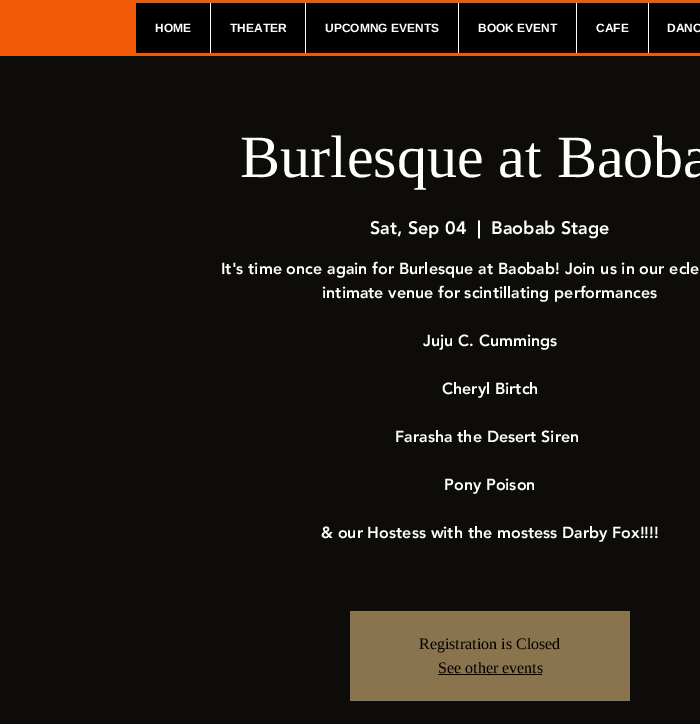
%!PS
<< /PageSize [700 724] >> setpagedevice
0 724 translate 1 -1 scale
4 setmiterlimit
0.949 0.353 0.027 setrgbcolor
0 0 700 724 rectfill
0 setgray
136 3 564 50 rectfill
/LiberationSans-Bold [12 0 0 -12 0 0] selectfont
1 setgray
155 32 moveto (HOME) show
210 3 1 50 rectfill
230 32 moveto (THEATER) show
305 3 1 50 rectfill
325 32 moveto (UPCOMNG EVENTS) show
458 3 1 50 rectfill
478 32 moveto (BOOK EVENT) show
576 3 1 50 rectfill
596 32 moveto (CAFE) show
648 3 1 50 rectfill
667 32 moveto (DANC) show
0.055 0.047 0.031 setrgbcolor
0 56 700 668 rectfill
/LiberationSerif-Regular [60 0 0 -60 0 0] selectfont
1 setgray
240 177 moveto (Burlesque at Baoba) show
/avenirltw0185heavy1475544-Black [18 0 0 -18 0 0] selectfont
370 234 moveto (Sat, Sep 04) show
477 234 moveto (|) show
491 234 moveto (Baobab Stage) show
/avenirltw0185heavy1475544-Black [16 0 0 -16 0 0] selectfont
221 274 moveto (It's time once again for Burlesque at Baobab! Join us in our ecle) show
322 298 moveto (intimate venue for scintillating performances) show
423 346 moveto (Juju C. Cummings) show
442 394 moveto (Cheryl Birtch) show
395 442 moveto (Farasha the Desert Siren) show
444 490 moveto (Pony Poison) show
321 538 moveto (& our Hostess with the mostess Darby Fox!!!!) show
0.537 0.455 0.302 setrgbcolor
350 611 280 90 rectfill
/LiberationSerif-Regular [16 0 0 -16 0 0] selectfont
0 setgray
419 649 moveto (Registration is Closed) show
438 673 moveto (See other events) show
438 674 104 1 rectfill
showpage
